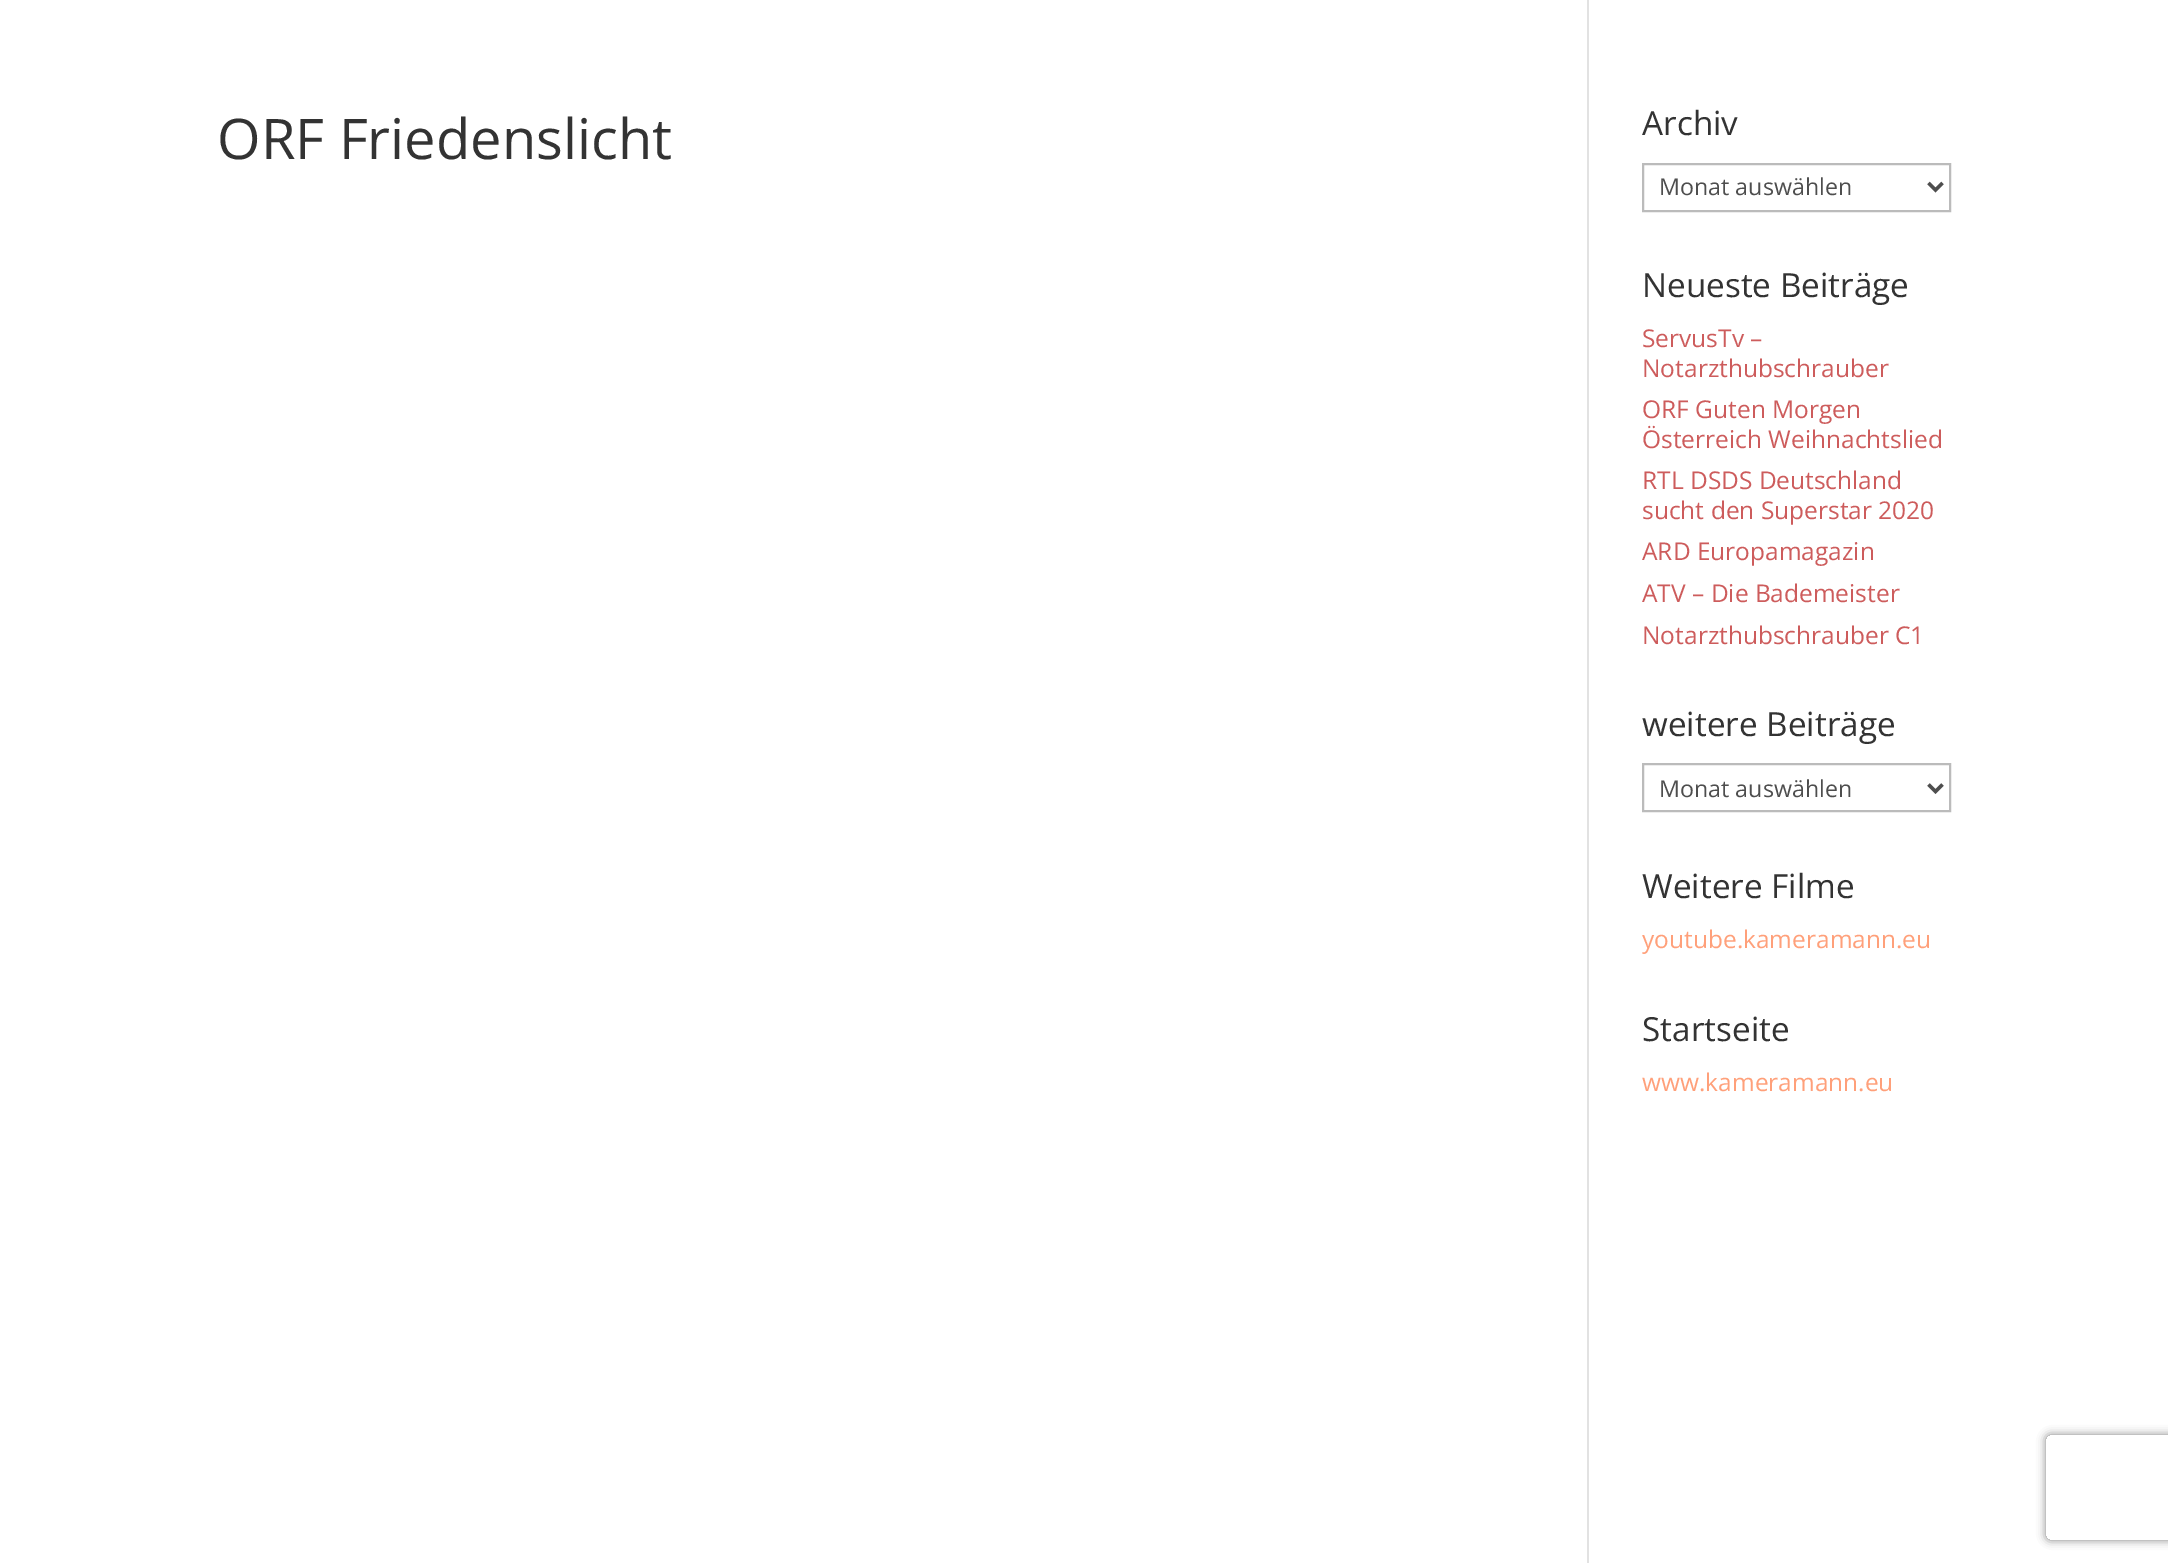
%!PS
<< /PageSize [2168 1563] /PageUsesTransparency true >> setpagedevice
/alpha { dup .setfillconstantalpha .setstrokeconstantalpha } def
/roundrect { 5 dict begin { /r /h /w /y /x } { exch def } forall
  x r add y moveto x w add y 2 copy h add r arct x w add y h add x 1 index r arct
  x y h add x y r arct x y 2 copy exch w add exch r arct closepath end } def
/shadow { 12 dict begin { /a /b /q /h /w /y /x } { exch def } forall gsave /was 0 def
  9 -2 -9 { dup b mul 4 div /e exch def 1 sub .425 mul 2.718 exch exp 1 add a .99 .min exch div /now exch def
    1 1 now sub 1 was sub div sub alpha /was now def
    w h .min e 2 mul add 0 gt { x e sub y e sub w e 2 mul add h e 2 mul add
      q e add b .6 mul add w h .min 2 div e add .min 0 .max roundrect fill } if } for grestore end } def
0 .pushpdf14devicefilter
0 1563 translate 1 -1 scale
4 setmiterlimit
1 setgray
0 0 2168 1563 rectfill
0.886 setgray
1587 0 2 1563 rectfill
/OpenSans-Regular [56 0 0 -56 0 0] selectfont
0.2 setgray
217 159 moveto (ORF Friedenslicht) show
/OpenSans-Regular [33.25 0 0 -33.25 0 0] selectfont
1642 135 moveto (Archiv) show
0.733 setgray
2 setlinewidth
1643 164 307 47 rectstroke
0.306 setgray
3.5 setlinewidth
newpath 1928.5 183 moveto 1935.5 190 lineto 1942.5 183 lineto stroke
/OpenSans-Regular [23.25 0 0 -23.25 0 0] selectfont
1659 195 moveto (Monat auswählen) show
/OpenSans-Regular [33.25 0 0 -33.25 0 0] selectfont
0.2 setgray
1642 297 moveto (Neueste Beiträge) show
/OpenSans-Regular [24.5 0 0 -24.5 0 0] selectfont
0.804 0.361 0.361 setrgbcolor
1642 347 moveto (ServusTv –) show
1642 377 moveto (Notarzthubschrauber) show
1642 418 moveto (ORF Guten Morgen) show
1642 448 moveto (Österreich Weihnachtslied) show
1642 489 moveto (RTL DSDS Deutschland) show
1642 519 moveto (sucht den Superstar 2020) show
1642 560 moveto (ARD Europamagazin) show
1642 602 moveto (ATV – Die Bademeister) show
1642 644 moveto (Notarzthubschrauber C1) show
/OpenSans-Regular [33.25 0 0 -33.25 0 0] selectfont
0.2 setgray
1642 736 moveto (weitere Beiträge) show
0.733 setgray
2 setlinewidth
1643 764 307 47 rectstroke
0.306 setgray
3.5 setlinewidth
newpath 1928.5 784.5 moveto 1935.5 791.5 lineto 1942.5 784.5 lineto stroke
/OpenSans-Regular [23.25 0 0 -23.25 0 0] selectfont
1659 797 moveto (Monat auswählen) show
/OpenSans-Regular [33.25 0 0 -33.25 0 0] selectfont
0.2 setgray
1642 898 moveto (Weitere Filme) show
/OpenSans-Regular [24.5 0 0 -24.5 0 0] selectfont
1 0.627 0.478 setrgbcolor
1642 948 moveto (youtube.kameramann.eu) show
/OpenSans-Regular [33.25 0 0 -33.25 0 0] selectfont
0.2 setgray
1642 1041 moveto (Startseite) show
/OpenSans-Regular [24.5 0 0 -24.5 0 0] selectfont
1 0.627 0.478 setrgbcolor
1642 1091 moveto (www.kameramann.eu) show
gsave
newpath 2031 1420 moveto 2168 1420 lineto 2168 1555 lineto 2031 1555 lineto closepath 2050 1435 moveto 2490 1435 lineto 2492 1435 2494 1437 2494 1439 curveto 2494 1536 lineto 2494 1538 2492 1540 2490 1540 curveto 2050 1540 lineto 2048 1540 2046 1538 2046 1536 curveto 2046 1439 lineto 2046 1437 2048 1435 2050 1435 curveto closepath eoclip newpath
0.502 setgray
2046 1435 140 105 4 4.5 1 shadow
grestore
.poppdf14devicefilter showpage
